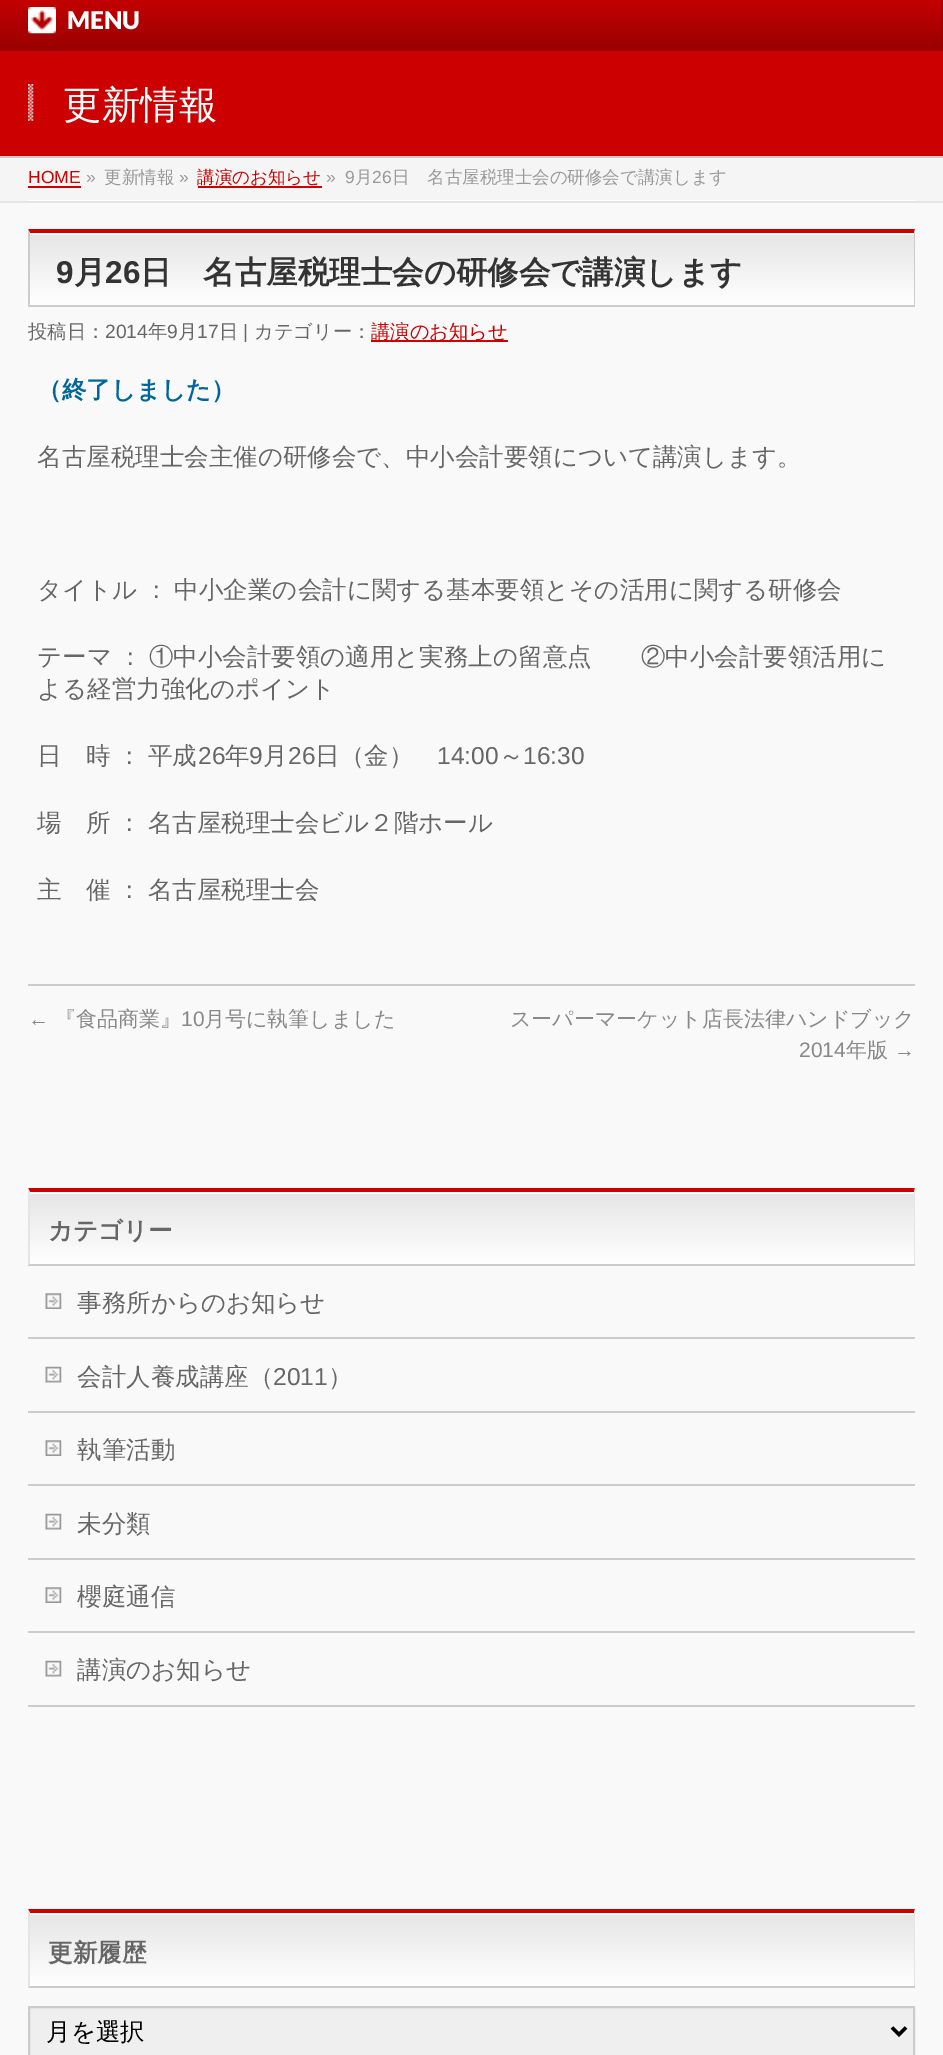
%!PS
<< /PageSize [943 2055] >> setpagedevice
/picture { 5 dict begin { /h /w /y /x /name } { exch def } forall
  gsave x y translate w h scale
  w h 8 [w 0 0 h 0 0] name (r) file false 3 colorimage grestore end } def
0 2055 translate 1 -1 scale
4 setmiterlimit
0.976 setgray
0 0 943 2055 rectfill
gsave newpath 0 0 moveto 942 0 lineto 942 51 lineto 0 51 lineto closepath clip newpath
<< /ShadingType 2 /ColorSpace /DeviceRGB /Coords [471 -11 471 51] /Extend [true true] /Function << /FunctionType 2 /Domain [0 1] /C0 [0.8 0 0] /C1 [0.6 0 0] /N 1 >> >> shfill grestore
0.6 0 0 setrgbcolor
942 0 1 51 rectfill
(img1.rgb) 28 7 28 27 picture
/Lato-Black [24.5 0 0 -24.5 0 0] selectfont
1 setgray
67 29 moveto (MENU) show
0.8 0 0 setrgbcolor
0 51 943 105 rectfill
0.8 setgray
0 156 943 2 rectfill
(img2.rgb) 28 84 6 37 picture
/WenQuanYiZenHei-Medium [38.5 0 0 -38.5 0 0] selectfont
1 setgray
63 118 moveto (更新情報) show
0.961 setgray
0 158 943 43 rectfill
0.898 setgray
0 201 943 2 rectfill
1 setgray
28 200 887 1 rectfill
/LiberationSans-Regular [17.5 0 0 -17.5 0 0] selectfont
0.8 0 0 setrgbcolor
28 183 moveto (HOME) show
28 186 53 2 rectfill
0.6 setgray
86 183 moveto (») show
/WenQuanYiZenHei-Medium [17.5 0 0 -17.5 0 0] selectfont
104 183 moveto (更新情報) show
/LiberationSans-Regular [17.5 0 0 -17.5 0 0] selectfont
179 183 moveto (») show
/WenQuanYiZenHei-Medium [17.5 0 0 -17.5 0 0] selectfont
0.8 0 0 setrgbcolor
197 183 moveto (講演のお知らせ) show
198 186 124 2 rectfill
/LiberationSans-Regular [17.5 0 0 -17.5 0 0] selectfont
0.6 setgray
326 183 moveto (») show
345 183 moveto (9) show
/WenQuanYiZenHei-Medium [17.5 0 0 -17.5 0 0] selectfont
355 183 moveto (月) show
/LiberationSans-Regular [17.5 0 0 -17.5 0 0] selectfont
372 183 moveto (26) show
/WenQuanYiZenHei-Medium [17.5 0 0 -17.5 0 0] selectfont
392 183 moveto (日　名古屋税理士会の研修会で講演します) show
gsave newpath 30 235 moveto 914 235 lineto 914 305 lineto 30 305 lineto closepath clip newpath
<< /ShadingType 2 /ColorSpace /DeviceRGB /Coords [30 233 30 305] /Extend [true true] /Function << /FunctionType 2 /Domain [0 1] /C0 [0.898 0.898 0.898] /C1 [1 1 1] /N 1 >> >> shfill grestore
1 setgray
30 233 884 2 rectfill
0.8 0 0 setrgbcolor
newpath 28 229 moveto 915 229 lineto 914 233 lineto 30 233 lineto closepath fill
0.8 setgray
newpath 915 229 moveto 915 306 lineto 914 304 lineto 914 233 lineto closepath fill
28 305 887 2 rectfill
newpath 28 306 moveto 28 229 lineto 30 233 lineto 30 304 lineto closepath fill
/LiberationSans-Bold [31.5 0 0 -31.5 0 0] selectfont
0.2 setgray
56 283 moveto (9) show
/WenQuanYiZenHei-Bold [31.5 0 0 -31.5 0 0] selectfont
74 283 moveto (月) show
/LiberationSans-Bold [31.5 0 0 -31.5 0 0] selectfont
105 283 moveto (26) show
/WenQuanYiZenHei-Bold [31.5 0 0 -31.5 0 0] selectfont
140 283 moveto (日　名古屋税理士会の研修会で講演します) show
/WenQuanYiZenHei-Medium [19.25 0 0 -19.25 0 0] selectfont
0.4 setgray
28 338 moveto (投稿日：) show
/LiberationSans-Regular [19.25 0 0 -19.25 0 0] selectfont
105 338 moveto (2014) show
/WenQuanYiZenHei-Medium [19.25 0 0 -19.25 0 0] selectfont
148 338 moveto (年) show
/LiberationSans-Regular [19.25 0 0 -19.25 0 0] selectfont
167 338 moveto (9) show
/WenQuanYiZenHei-Medium [19.25 0 0 -19.25 0 0] selectfont
178 338 moveto (月) show
/LiberationSans-Regular [19.25 0 0 -19.25 0 0] selectfont
197 338 moveto (17) show
/WenQuanYiZenHei-Medium [19.25 0 0 -19.25 0 0] selectfont
219 338 moveto (日) show
/LiberationSans-Regular [19.25 0 0 -19.25 0 0] selectfont
243 338 moveto (|) show
/WenQuanYiZenHei-Medium [19.25 0 0 -19.25 0 0] selectfont
254 338 moveto (カテゴリー：) show
0.8 0 0 setrgbcolor
371 340 137 2 rectfill
371 338 moveto (講演のお知らせ) show
/WenQuanYiZenHei-Bold [24.5 0 0 -24.5 0 0] selectfont
0 0.4 0.6 setrgbcolor
37 398 moveto (（終了しました）) show
/WenQuanYiZenHei-Medium [24.5 0 0 -24.5 0 0] selectfont
0.4 setgray
37 465 moveto (名古屋税理士会主催の研修会で、中小会計要領について講演します。) show
37 598 moveto -1 0 32 (タイトル ： 中小企業の会計に関する基本要領とその活用に関する研修会) widthshow
37 665 moveto -1 0 32 (テーマ ： ①中小会計要領の適用と実務上の留意点　　②中小会計要領活用に) widthshow
37 697 moveto (よる経営力強化のポイント) show
37 764 moveto -1 0 32 (日　時 ： 平成) widthshow
/LiberationSans-Regular [24.5 0 0 -24.5 0 0] selectfont
198 764 moveto (26) show
/WenQuanYiZenHei-Medium [24.5 0 0 -24.5 0 0] selectfont
225 764 moveto (年) show
/LiberationSans-Regular [24.5 0 0 -24.5 0 0] selectfont
249 764 moveto (9) show
/WenQuanYiZenHei-Medium [24.5 0 0 -24.5 0 0] selectfont
263 764 moveto (月) show
/LiberationSans-Regular [24.5 0 0 -24.5 0 0] selectfont
288 764 moveto (26) show
/WenQuanYiZenHei-Medium [24.5 0 0 -24.5 0 0] selectfont
315 764 moveto (日（金）) show
/LiberationSans-Regular [24.5 0 0 -24.5 0 0] selectfont
437 764 moveto (14:00) show
/WenQuanYiZenHei-Medium [24.5 0 0 -24.5 0 0] selectfont
499 764 moveto (～) show
/LiberationSans-Regular [24.5 0 0 -24.5 0 0] selectfont
523 764 moveto (16:30) show
/WenQuanYiZenHei-Medium [24.5 0 0 -24.5 0 0] selectfont
37 831 moveto -1 0 32 (場　所 ： 名古屋税理士会ビル２階ホール) widthshow
37 898 moveto -1 0 32 (主　催 ： 名古屋税理士会) widthshow
0.8 setgray
28 984 887 2 rectfill
/LiberationSans-Regular [21 0 0 -21 0 0] selectfont
0.533 setgray
28 1026 moveto (←) show
/WenQuanYiZenHei-Medium [21 0 0 -21 0 0] selectfont
55 1026 moveto (『食品商業』) show
/LiberationSans-Regular [21 0 0 -21 0 0] selectfont
181 1026 moveto (10) show
/WenQuanYiZenHei-Medium [21 0 0 -21 0 0] selectfont
204 1026 moveto (月号に執筆しました) show
510 1026 moveto (スーパーマーケット店長法律ハンドブック) show
/LiberationSans-Regular [21 0 0 -21 0 0] selectfont
799 1057 moveto (2014) show
/WenQuanYiZenHei-Medium [21 0 0 -21 0 0] selectfont
846 1057 moveto (年版) show
/LiberationSans-Regular [21 0 0 -21 0 0] selectfont
894 1057 moveto (→) show
gsave newpath 30 1194 moveto 914 1194 lineto 914 1264 lineto 30 1264 lineto closepath clip newpath
<< /ShadingType 2 /ColorSpace /DeviceRGB /Coords [30 1192 30 1264] /Extend [true true] /Function << /FunctionType 2 /Domain [0 1] /C0 [0.898 0.898 0.898] /C1 [1 1 1] /N 1 >> >> shfill grestore
1 setgray
30 1192 884 2 rectfill
0.8 0 0 setrgbcolor
newpath 28 1188 moveto 915 1188 lineto 914 1192 lineto 30 1192 lineto closepath fill
0.898 setgray
newpath 915 1188 moveto 915 1265 lineto 914 1264 lineto 914 1192 lineto closepath fill
0.8 setgray
28 1264 887 2 rectfill
0.898 setgray
newpath 28 1265 moveto 28 1188 lineto 30 1192 lineto 30 1264 lineto closepath fill
/WenQuanYiZenHei-Bold [24.5 0 0 -24.5 0 0] selectfont
0.4 setgray
48 1239 moveto (カテゴリー) show
0.8 setgray
28 1337 887 2 rectfill
(img3.rgb) 45 1293 17 16 picture
/WenQuanYiZenHei-Medium [24.5 0 0 -24.5 0 0] selectfont
0.4 setgray
77 1311 moveto (事務所からのお知らせ) show
0.8 setgray
28 1411 887 2 rectfill
(img4.rgb) 45 1366 17 17 picture
0.4 setgray
77 1385 moveto (会計人養成講座（) show
/LiberationSans-Regular [24.5 0 0 -24.5 0 0] selectfont
273 1385 moveto (2011) show
/WenQuanYiZenHei-Medium [24.5 0 0 -24.5 0 0] selectfont
328 1385 moveto (）) show
0.8 setgray
28 1484 887 2 rectfill
(img3.rgb) 45 1440 17 16 picture
0.4 setgray
77 1458 moveto (執筆活動) show
0.8 setgray
28 1558 887 2 rectfill
(img4.rgb) 45 1513 17 17 picture
0.4 setgray
77 1532 moveto (未分類) show
0.8 setgray
28 1631 887 2 rectfill
(img3.rgb) 45 1587 17 16 picture
0.4 setgray
77 1605 moveto (櫻庭通信) show
0.8 setgray
28 1705 887 2 rectfill
(img4.rgb) 45 1660 17 17 picture
0.4 setgray
77 1678 moveto (講演のお知らせ) show
gsave newpath 30 1915 moveto 914 1915 lineto 914 1986 lineto 30 1986 lineto closepath clip newpath
<< /ShadingType 2 /ColorSpace /DeviceRGB /Coords [30 1913 30 1986] /Extend [true true] /Function << /FunctionType 2 /Domain [0 1] /C0 [0.898 0.898 0.898] /C1 [1 1 1] /N 1 >> >> shfill grestore
1 setgray
30 1913 884 2 rectfill
0.8 0 0 setrgbcolor
newpath 28 1909 moveto 915 1909 lineto 914 1913 lineto 30 1913 lineto closepath fill
0.898 setgray
newpath 915 1909 moveto 915 1988 lineto 914 1986 lineto 914 1913 lineto closepath fill
0.8 setgray
28 1986 887 2 rectfill
0.898 setgray
newpath 28 1988 moveto 28 1909 lineto 30 1913 lineto 30 1986 lineto closepath fill
/WenQuanYiZenHei-Bold [24.5 0 0 -24.5 0 0] selectfont
0.4 setgray
48 1961 moveto (更新履歴) show
0.937 setgray
newpath 29 2007 moveto 914 2007 lineto 914 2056 lineto 29 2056 lineto closepath gsave fill grestore
0.8 setgray
2 setlinewidth
stroke
0 setgray
3.5 setlinewidth
newpath 892 2027.5 moveto 899 2034.5 lineto 906 2027.5 lineto stroke
/WenQuanYiZenHei-Medium [24.5 0 0 -24.5 0 0] selectfont
46 2040 moveto (月を選択) show
showpage
